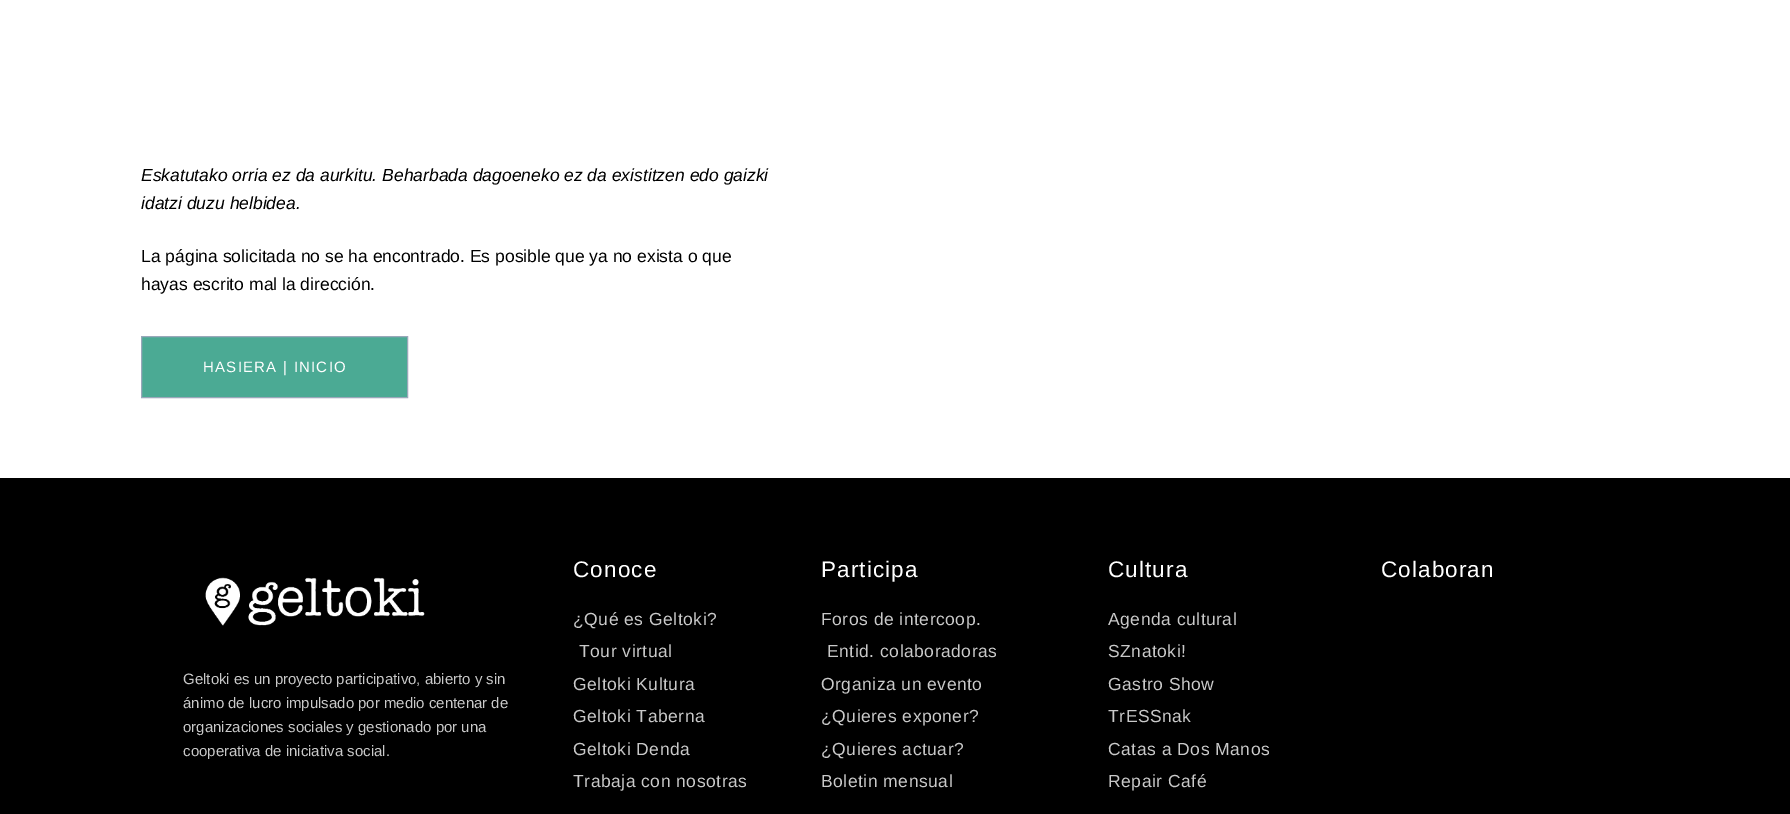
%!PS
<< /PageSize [1790 814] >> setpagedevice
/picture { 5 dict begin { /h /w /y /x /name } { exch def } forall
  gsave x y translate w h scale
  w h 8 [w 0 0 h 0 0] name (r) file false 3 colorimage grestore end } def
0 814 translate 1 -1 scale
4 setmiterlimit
1 setgray
0 0 1790 814 rectfill
/LiberationSans-Italic [17.5 0 0 -17.5 0 0] selectfont
0 setgray
141 181 moveto (Eskatutako orria ez da aurkitu. Beharbada dagoeneko ez da existitzen edo gaizki) show
141 209 moveto (idatzi duzu helbidea.) show
/LiberationSans-Regular [17.5 0 0 -17.5 0 0] selectfont
141 262 moveto (La página solicitada no se ha encontrado. Es posible que ya no exista o que) show
141 290 moveto (hayas escrito mal la dirección.) show
0.294 0.667 0.58 setrgbcolor
newpath 141.5 336.5 moveto 407.5 336.5 lineto 407.5 397.5 lineto 141.5 397.5 lineto closepath gsave fill grestore
0.604 0.659 0.729 setrgbcolor
stroke
/LiberationSans-Regular [15 0 0 -15 0 0] selectfont
1 setgray
203 372 moveto 1.25 0 (HASIERA | INICIO) ashow
0 setgray
0 478 1790 336 rectfill
(img1.rgb) 205 577 220 49 picture
0.788 setgray
183 684 moveto (Geltoki es un proyecto participativo, abierto y sin) show
183 708 moveto (ánimo de lucro impulsado por medio centenar de) show
183 732 moveto (organizaciones sociales y gestionado por una) show
183 756 moveto (cooperativa de iniciativa social.) show
/LiberationSans-Regular [22.5 0 0 -22.5 0 0] selectfont
1 setgray
573 577 moveto 1.1 0 (Conoce) ashow
/LiberationSans-Regular [17.5 0 0 -17.5 0 0] selectfont
0.788 setgray
573 625 moveto 0.5 0 (¿Qué es Geltoki?) ashow
579 657 moveto 0.5 0 (Tour virtual) ashow
573 690 moveto 0.5 0 (Geltoki Kultura) ashow
573 722 moveto 0.5 0 (Geltoki Taberna) ashow
573 755 moveto 0.5 0 (Geltoki Denda) ashow
573 787 moveto 0.5 0 (Trabaja con nosotras) ashow
/LiberationSans-Regular [22.5 0 0 -22.5 0 0] selectfont
1 setgray
821 577 moveto 1.1 0 (Participa) ashow
/LiberationSans-Regular [17.5 0 0 -17.5 0 0] selectfont
0.788 setgray
821 625 moveto 0.5 0 (Foros de intercoop.) ashow
827 657 moveto 0.5 0 (Entid. colaboradoras) ashow
821 690 moveto 0.5 0 (Organiza un evento) ashow
821 722 moveto 0.5 0 (¿Quieres exponer?) ashow
821 755 moveto 0.5 0 (¿Quieres actuar?) ashow
821 787 moveto 0.5 0 (Boletin mensual) ashow
/LiberationSans-Regular [22.5 0 0 -22.5 0 0] selectfont
1 setgray
1108 577 moveto 1.1 0 (Cultura) ashow
/LiberationSans-Regular [17.5 0 0 -17.5 0 0] selectfont
0.788 setgray
1108 625 moveto 0.5 0 (Agenda cultural) ashow
1108 657 moveto 0.5 0 (SZnatoki!) ashow
1108 690 moveto 0.5 0 (Gastro Show) ashow
1108 722 moveto 0.5 0 (TrESSnak) ashow
1108 755 moveto 0.5 0 (Catas a Dos Manos) ashow
1108 787 moveto 0.5 0 (Repair Café) ashow
/LiberationSans-Regular [22.5 0 0 -22.5 0 0] selectfont
1 setgray
1381 577 moveto 1.1 0 (Colaboran) ashow
showpage
